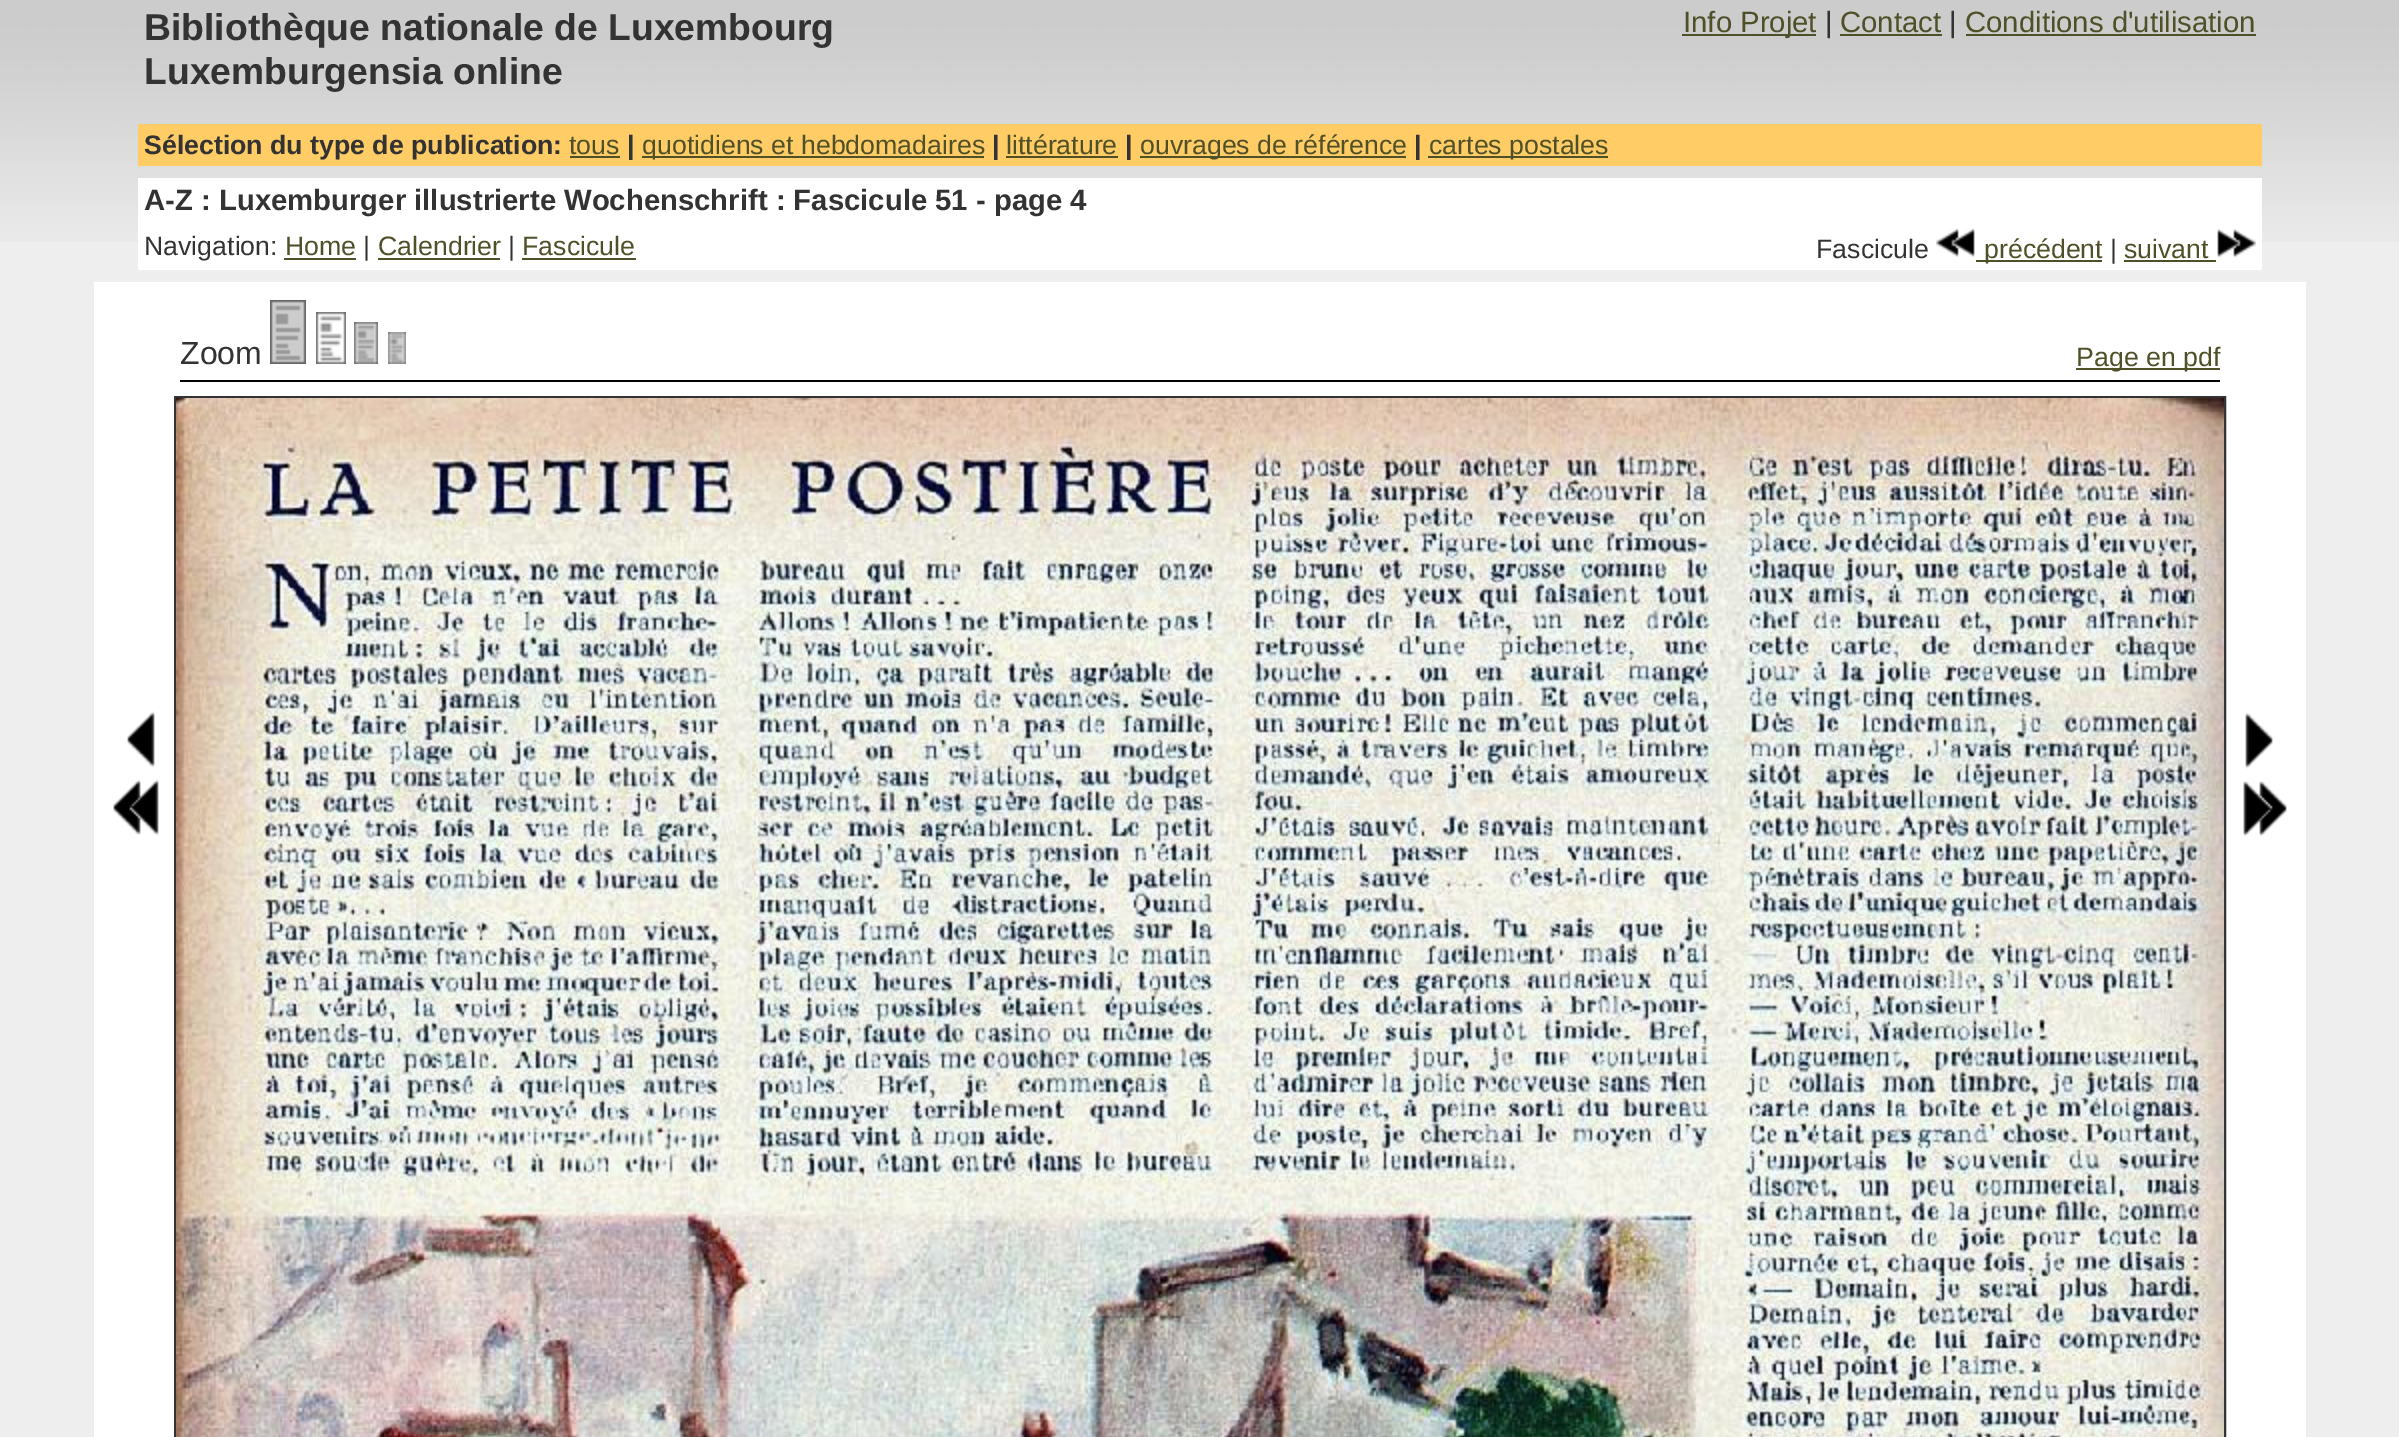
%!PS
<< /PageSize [2399 1437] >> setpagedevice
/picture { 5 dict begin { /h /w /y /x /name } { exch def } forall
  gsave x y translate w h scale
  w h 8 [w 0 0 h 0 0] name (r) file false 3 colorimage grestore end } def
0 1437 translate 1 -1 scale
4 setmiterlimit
0.933 setgray
0 0 2399 1437 rectfill
(img1.rgb) 0 0 2399 242 picture
(img2.rgb) 138 0 2124 124 picture
/LiberationSans-Bold [37.3 0 0 -37.3 0 0] selectfont
0.2 setgray
144 40 moveto (Bibliothèque nationale de Luxembourg) show
144 84 moveto (Luxemburgensia online) show
0.31 0.31 0.157 setrgbcolor
1682 34 134 2 rectfill
/LiberationSans-Regular [29.3 0 0 -29.3 0 0] selectfont
1683 32 moveto (Info Projet) show
0.2 setgray
1825 32 moveto (|) show
0.31 0.31 0.157 setrgbcolor
1840 32 moveto (Contact) show
1840 34 102 2 rectfill
0.2 setgray
1949 32 moveto (|) show
0.31 0.31 0.157 setrgbcolor
1965 32 moveto (Conditions d'utilisation) show
1966 34 290 2 rectfill
1 0.8 0.4 setrgbcolor
138 124 2124 42 rectfill
/LiberationSans-Bold [26.7 0 0 -26.7 0 0] selectfont
0.2 setgray
144 154 moveto (Sélection du type de publication:) show
/LiberationSans-Regular [26.7 0 0 -26.7 0 0] selectfont
0.31 0.31 0.157 setrgbcolor
569 154 moveto (tous) show
570 156 50 2 rectfill
/LiberationSans-Bold [26.7 0 0 -26.7 0 0] selectfont
0.2 setgray
627 154 moveto (|) show
0.31 0.31 0.157 setrgbcolor
642 156 342 2 rectfill
/LiberationSans-Regular [26.7 0 0 -26.7 0 0] selectfont
642 154 moveto (quotidiens et hebdomadaires) show
/LiberationSans-Bold [26.7 0 0 -26.7 0 0] selectfont
0.2 setgray
992 154 moveto (|) show
/LiberationSans-Regular [26.7 0 0 -26.7 0 0] selectfont
0.31 0.31 0.157 setrgbcolor
1006 154 moveto (littérature) show
1006 156 112 2 rectfill
/LiberationSans-Bold [26.7 0 0 -26.7 0 0] selectfont
0.2 setgray
1125 154 moveto (|) show
0.31 0.31 0.157 setrgbcolor
1140 156 266 2 rectfill
/LiberationSans-Regular [26.7 0 0 -26.7 0 0] selectfont
1140 154 moveto (ouvrages de référence) show
/LiberationSans-Bold [26.7 0 0 -26.7 0 0] selectfont
0.2 setgray
1414 154 moveto (|) show
0.31 0.31 0.157 setrgbcolor
1428 156 180 2 rectfill
/LiberationSans-Regular [26.7 0 0 -26.7 0 0] selectfont
1429 154 moveto (cartes postales) show
1 setgray
138 178 2124 92 rectfill
/LiberationSans-Bold [29.3 0 0 -29.3 0 0] selectfont
0.2 setgray
144 210 moveto (A-Z : Luxemburger illustrierte Wochenschrift : Fascicule 51 - page 4) show
/LiberationSans-Regular [26.7 0 0 -26.7 0 0] selectfont
144 255 moveto (Navigation:) show
0.31 0.31 0.157 setrgbcolor
285 255 moveto (Home) show
284 258 72 2 rectfill
0.2 setgray
363 255 moveto (|) show
0.31 0.31 0.157 setrgbcolor
378 255 moveto (Calendrier) show
378 258 122 2 rectfill
0.2 setgray
508 255 moveto (|) show
0.31 0.31 0.157 setrgbcolor
522 255 moveto (Fascicule) show
522 258 114 2 rectfill
0.2 setgray
1816 258 moveto (Fascicule) show
(img3.rgb) 1936 228 39 29 picture
0.31 0.31 0.157 setrgbcolor
1976 260 126 2 rectfill
1984 258 moveto (précédent) show
0.2 setgray
2110 258 moveto (|) show
0.31 0.31 0.157 setrgbcolor
2124 258 moveto (suivant) show
2124 260 92 2 rectfill
(img4.rgb) 2217 229 39 29 picture
1 setgray
94 282 2212 1155 rectfill
/LiberationSans-Regular [32 0 0 -32 0 0] selectfont
0.2 setgray
180 364 moveto (Zoom) show
(img5.rgb) 270 300 36 64 picture
(img6.rgb) 316 312 30 52 picture
(img7.rgb) 354 322 24 42 picture
(img8.rgb) 388 332 18 32 picture
0.31 0.31 0.157 setrgbcolor
2076 368 144 2 rectfill
/LiberationSans-Regular [26.7 0 0 -26.7 0 0] selectfont
2076 366 moveto (Page en pdf) show
0 setgray
180 380 2040 2 rectfill
(img9.rgb) 127 711 28 56 picture
(img10.rgb) 113 779 46 56 picture
0.2 setgray
2 setlinewidth
175 397 2050 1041 rectstroke
(img11.rgb) 176 398 2048 1039 picture
(img12.rgb) 2245 713 28 56 picture
(img13.rgb) 2243 781 44 56 picture
showpage
